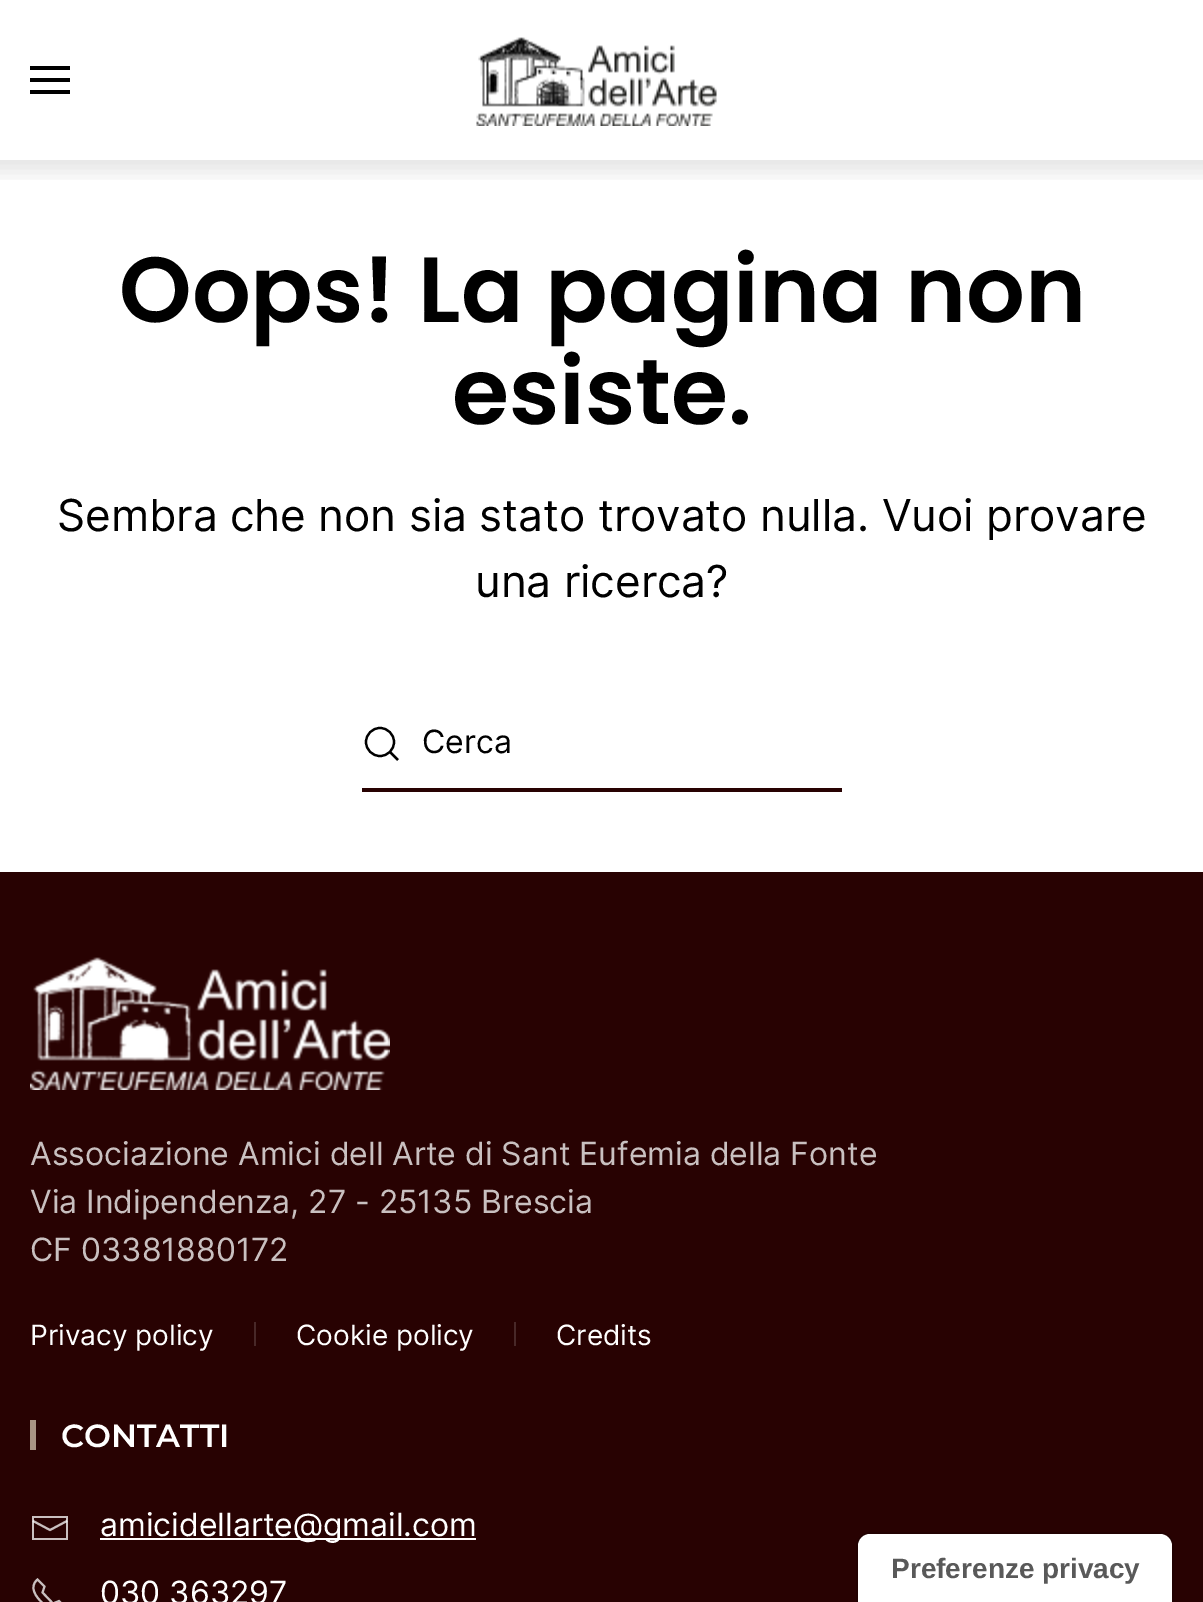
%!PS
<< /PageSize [1203 1602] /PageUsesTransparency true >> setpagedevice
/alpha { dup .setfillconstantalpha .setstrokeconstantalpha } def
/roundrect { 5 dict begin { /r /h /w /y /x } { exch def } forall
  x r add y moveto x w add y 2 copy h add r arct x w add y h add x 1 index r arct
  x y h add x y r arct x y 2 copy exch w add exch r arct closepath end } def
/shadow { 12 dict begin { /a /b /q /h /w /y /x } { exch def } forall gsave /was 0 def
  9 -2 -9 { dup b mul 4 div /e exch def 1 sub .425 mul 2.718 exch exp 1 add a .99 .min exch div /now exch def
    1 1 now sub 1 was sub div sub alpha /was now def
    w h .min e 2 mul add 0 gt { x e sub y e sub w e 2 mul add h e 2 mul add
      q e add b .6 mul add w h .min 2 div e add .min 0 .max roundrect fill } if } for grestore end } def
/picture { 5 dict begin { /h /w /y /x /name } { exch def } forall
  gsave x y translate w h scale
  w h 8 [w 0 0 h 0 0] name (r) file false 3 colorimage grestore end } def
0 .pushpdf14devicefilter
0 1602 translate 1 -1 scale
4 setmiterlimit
1 setgray
0 0 1203 1602 rectfill
gsave
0 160 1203 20 rectclip
0 setgray
-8 -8 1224 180 0 10 0.1 shadow
grestore
0 setgray
30 66 40 4 rectfill
30 78 40 4 rectfill
30 90 40 4 rectfill
(img1.rgb) 476 37 241 89 picture
/Poppins-SemiBold [92.4 0 0 -92.4 0 0] selectfont
119 322 moveto (Oops! La pagina non) show
452 424 moveto (esiste.) show
/Inter-Regular [44 0 0 -44 0 0] selectfont
57 531 moveto (Sembra che non sia stato trovato nulla. Vuoi provare) show
475 597 moveto (una ricerca?) show
2.2 setlinewidth
newpath 380 742 14 0 360 arc closepath stroke
newpath 390 752 moveto 398 760 lineto closepath stroke
0.157 0.008 0.008 setrgbcolor
362 788 480 4 rectfill
/Inter-Regular [32 0 0 -32 0 0] selectfont
0 setgray
422 753 moveto (Cerca) show
0.157 0.008 0.008 setrgbcolor
0 872 1203 730 rectfill
(img2.rgb) 30 957 360 133 picture
0.788 0.753 0.753 setrgbcolor
30 1165 moveto (Associazione Amici dell Arte di Sant Eufemia della Fonte) show
30 1213 moveto (Via Indipendenza, 27 - 25135 Brescia) show
30 1261 moveto (CF 03381880172) show
/Inter-Regular [28 0 0 -28 0 0] selectfont
1 setgray
30 1345 moveto (Privacy policy) show
0.282 0.157 0.157 setrgbcolor
254 1322 2 24 rectfill
1 setgray
296 1345 moveto (Cookie policy) show
0.282 0.157 0.157 setrgbcolor
514 1322 2 24 rectfill
1 setgray
556 1345 moveto (Credits) show
0.663 0.58 0.518 setrgbcolor
30 1420 6 30 rectfill
/Montserrat-Thin [32 0 0 -32 0 0] selectfont
1 setgray
61 1447 moveto (CONTATTI) show
0.788 0.753 0.753 setrgbcolor
2 setlinewidth
newpath 33 1521 moveto 50 1530 lineto 67 1521 lineto stroke
0.75 alpha
1 setgray
newpath 32 1516 moveto 32 1540 lineto 68 1540 lineto 68 1516 lineto closepath 66 1538 moveto 34 1538 lineto 34 1518 lineto 66 1518 lineto closepath fill
1 alpha
100 1538 376 2 rectfill
/Inter-Regular [32 0 0 -32 0 0] selectfont
100 1536 moveto (amicidellarte@gmail.com) show
0.788 0.753 0.753 setrgbcolor
newpath 42.5 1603 moveto 47.5 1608.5 55 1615 63 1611.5 curveto 66.5 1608.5 lineto 59 1601 lineto 53 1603.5 lineto 42.5 1592.5 lineto 44.5 1586.5 lineto 37.5 1579.5 lineto 28.5 1587 36 1597 42.5 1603 curveto stroke
1 setgray
100 1604 moveto (030 363297) show
0.133 0.008 0.008 setrgbcolor
newpath 870 1533 moveto 1160 1533 lineto 1167 1533 1173 1539 1173 1546 curveto 1173 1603 lineto 857 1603 lineto 857 1546 lineto 857 1539 863 1533 870 1533 curveto closepath stroke
1 setgray
newpath 870 1534 moveto 1160 1534 lineto 1166.5 1534 1172 1539.5 1172 1546 curveto 1172 1602 lineto 858 1602 lineto 858 1546 lineto 858 1539.5 863.5 1534 870 1534 curveto closepath fill
/LiberationSans-Bold [28 0 0 -28 0 0] selectfont
0.349 setgray
891 1578 moveto (Preferenze privacy) show
.poppdf14devicefilter showpage
